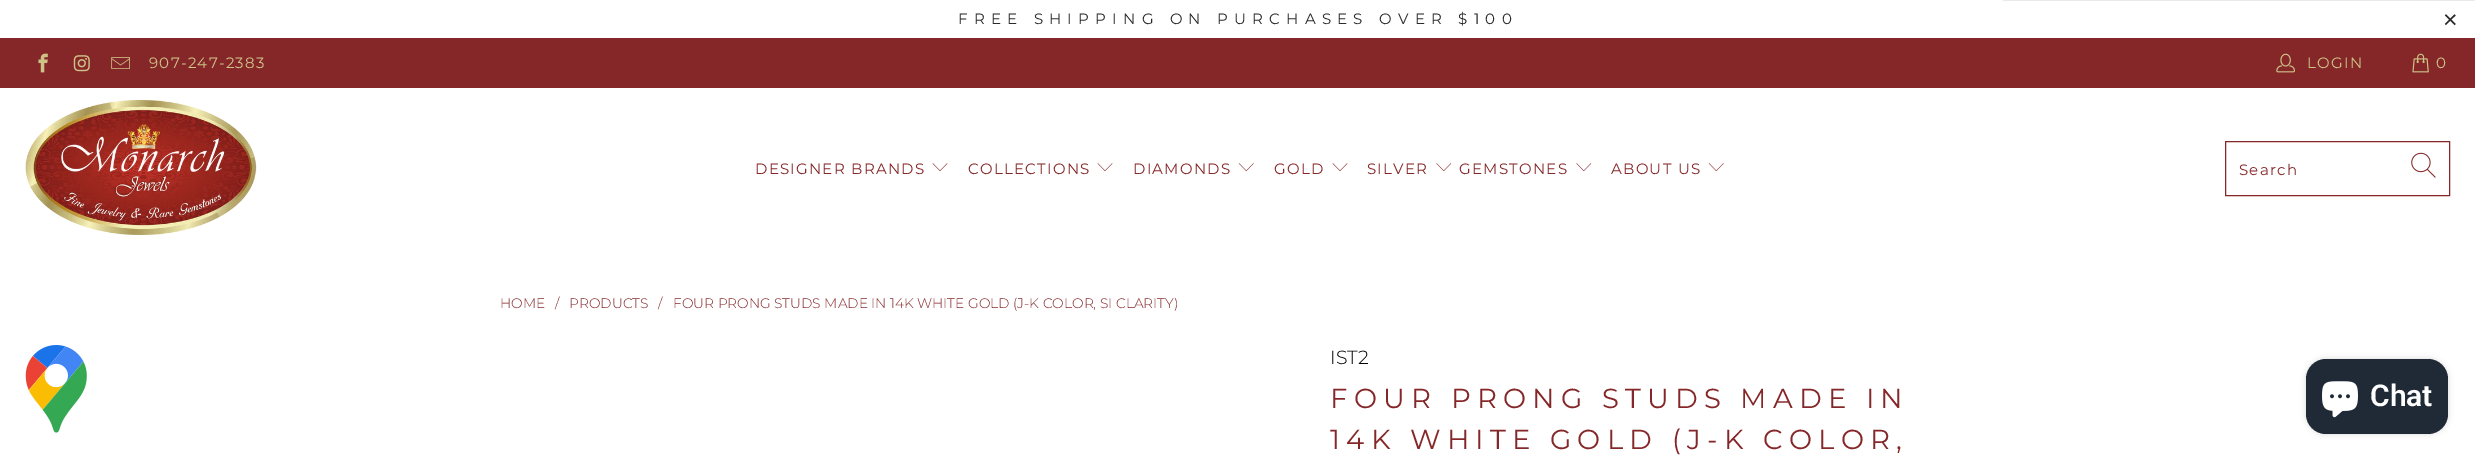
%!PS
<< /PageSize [2475 460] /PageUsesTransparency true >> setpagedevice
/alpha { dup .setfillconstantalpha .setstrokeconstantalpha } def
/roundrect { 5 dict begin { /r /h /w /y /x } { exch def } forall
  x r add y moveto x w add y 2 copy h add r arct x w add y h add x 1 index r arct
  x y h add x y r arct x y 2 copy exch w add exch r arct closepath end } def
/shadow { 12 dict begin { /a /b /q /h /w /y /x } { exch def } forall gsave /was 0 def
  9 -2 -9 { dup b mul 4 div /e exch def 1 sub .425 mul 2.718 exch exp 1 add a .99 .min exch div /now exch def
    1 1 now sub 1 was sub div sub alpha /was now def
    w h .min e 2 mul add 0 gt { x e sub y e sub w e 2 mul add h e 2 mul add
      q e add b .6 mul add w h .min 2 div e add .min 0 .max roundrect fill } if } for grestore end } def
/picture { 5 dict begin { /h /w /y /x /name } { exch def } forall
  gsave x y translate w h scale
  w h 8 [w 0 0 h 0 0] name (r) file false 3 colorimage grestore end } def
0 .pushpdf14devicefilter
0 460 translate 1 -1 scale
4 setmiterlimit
1 setgray
0 0 2475 460 rectfill
0.91 0.914 0.922 setrgbcolor
2003 0 472 1 rectfill
/Montserrat-Regular [15 0 0 -15 0 0] selectfont
0.169 0.165 0.165 setrgbcolor
958 24 moveto 6.25 0 (FREE SHIPPING ON PURCHASES OVER $100) ashow
/LiberationSans-Regular [25 0 0 -25 0 0] selectfont
2443 28 moveto 6.25 0 (×) ashow
0.522 0.153 0.161 setrgbcolor
0 38 2475 50 rectfill
(img1.rgb) 38 53 10 20 picture
(img2.rgb) 73 55 17 17 picture
(img3.rgb) 111 57 19 12 picture
/Montserrat-Regular [15 0 0 -15 0 0] selectfont
0.808 0.765 0.529 setrgbcolor
149 68 moveto 1.25 0 (907-247-2383) ashow
(img4.rgb) 2276 53 19 20 picture
2307 68 moveto 1.25 0 (LOGIN) ashow
(img5.rgb) 2412 53 17 20 picture
2436 68 moveto 1.25 0 (0) ashow
(img6.rgb) 25 100 232 135 picture
0.522 0.153 0.161 setrgbcolor
755 174 moveto 1.25 0 (DESIGNER BRANDS) ashow
(img7.rgb) 932 163 16 9 picture
968 174 moveto 1.25 0 (COLLECTIONS) ashow
(img7.rgb) 1097 163 16 9 picture
1133 174 moveto 1.25 0 (DIAMONDS) ashow
(img8.rgb) 1238 163 16 9 picture
1274 174 moveto 1.25 0 (GOLD) ashow
(img7.rgb) 1332 163 16 9 picture
1367 174 moveto 1.25 0 (SILVER) ashow
(img9.rgb) 1436 163 16 9 picture
1459 174 moveto 1.25 0 (GEMSTONES) ashow
(img9.rgb) 1576 163 16 9 picture
1611 174 moveto 1.25 0 (ABOUT US) ashow
(img8.rgb) 1708 163 16 9 picture
2225.5 141.5 224 54 rectstroke
2239 175 moveto 1.25 0 (Search) ashow
(img10.rgb) 2411 152 25 26 picture
(img11.rgb) 25 345 62 88 picture
/Montserrat-Light [13.75 0 0 -13.75 0 0] selectfont
500 308 moveto (HOME) show
555 308 moveto (/) show
569 308 moveto (PRODUCTS) show
658 308 moveto (/) show
673 308 moveto (FOUR PRONG STUDS MADE IN 14K WHITE GOLD \(J-K COLOR, SI CLARITY\)) show
/Montserrat-Light [19 0 0 -19 0 0] selectfont
0 setgray
1330 364 moveto (IST2) show
/Montserrat-Regular [27.5 0 0 -27.5 0 0] selectfont
0.522 0.153 0.161 setrgbcolor
1330 408 moveto 6.25 0 (FOUR PRONG STUDS MADE IN) ashow
1330 449 moveto 6.25 0 (14K WHITE GOLD \(J-K COLOR,) ashow
0 setgray
2306 359 142 75 20 3 0.15 shadow
0.125 0.165 0.212 setrgbcolor
2306 359 142 75 20 roundrect fill
(img12.rgb) 2322 381 36 37 picture
/Roboto-SemiBold [30 0 0 -30 0 0] selectfont
1 setgray
2370 406 moveto (Chat) show
.poppdf14devicefilter showpage
